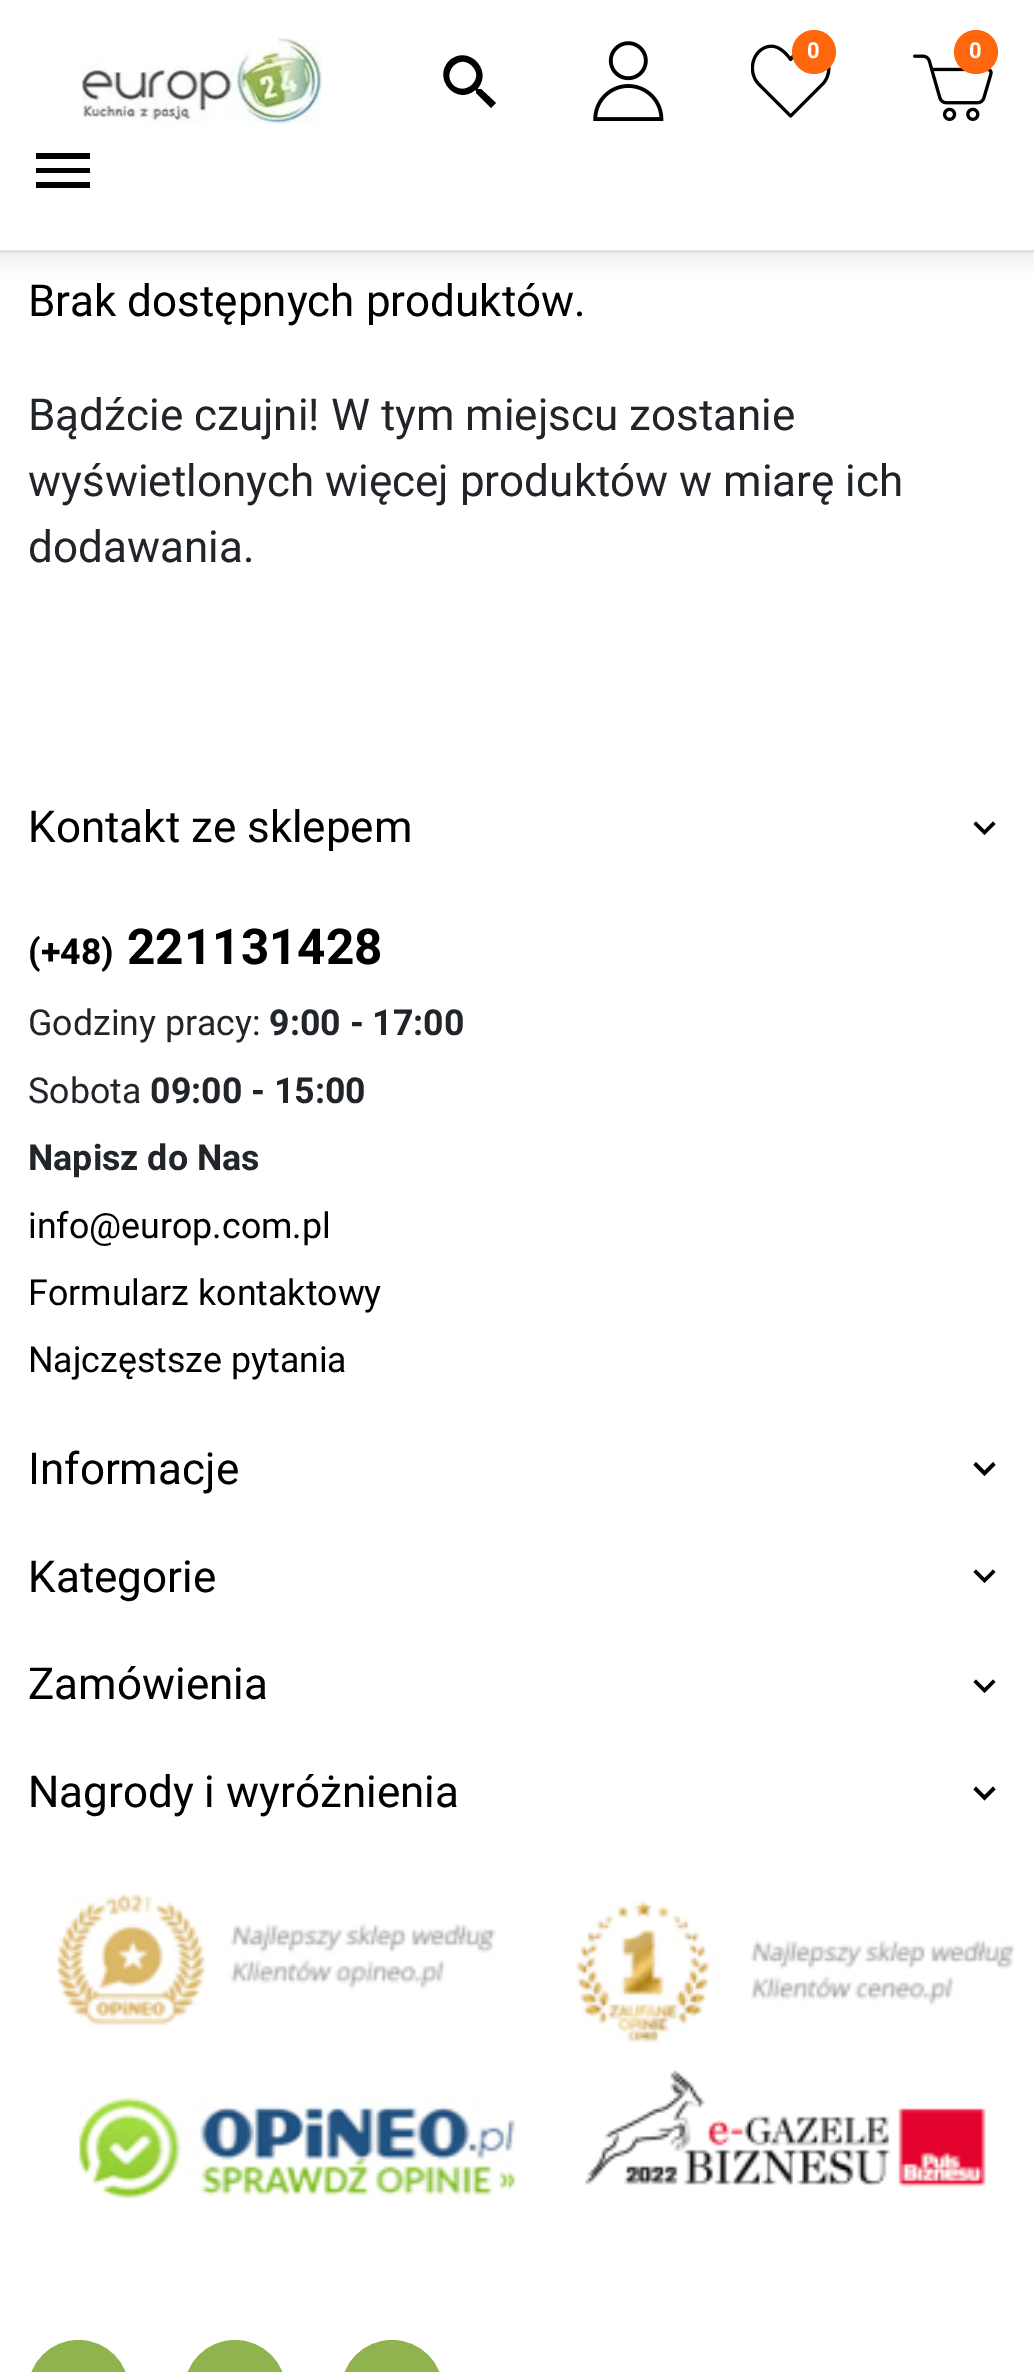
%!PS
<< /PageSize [1034 2372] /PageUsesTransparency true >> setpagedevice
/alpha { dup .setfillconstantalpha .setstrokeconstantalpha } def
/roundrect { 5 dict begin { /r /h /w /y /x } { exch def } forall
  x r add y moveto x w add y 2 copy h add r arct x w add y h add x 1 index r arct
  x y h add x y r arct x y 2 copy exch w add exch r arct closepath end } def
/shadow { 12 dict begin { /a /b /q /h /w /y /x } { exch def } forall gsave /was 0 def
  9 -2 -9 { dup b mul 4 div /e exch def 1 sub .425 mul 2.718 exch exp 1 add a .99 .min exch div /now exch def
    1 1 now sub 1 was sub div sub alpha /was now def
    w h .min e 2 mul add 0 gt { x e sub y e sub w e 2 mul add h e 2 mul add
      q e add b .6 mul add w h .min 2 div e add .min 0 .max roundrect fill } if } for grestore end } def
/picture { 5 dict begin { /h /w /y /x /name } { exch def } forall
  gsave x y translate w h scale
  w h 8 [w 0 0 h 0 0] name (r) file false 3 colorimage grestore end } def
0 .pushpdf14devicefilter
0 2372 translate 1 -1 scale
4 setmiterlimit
1 setgray
0 0 1034 2372 rectfill
0.173 setgray
0 6 1034 253 0 11 0.1 shadow
1 setgray
0 0 1034 250 rectfill
0.871 0.886 0.902 setrgbcolor
0 250 1034 3 rectfill
(img1.rgb) 82 38 240 86 picture
(img2.rgb) 593 41 71 80 picture
(img3.rgb) 751 44 80 74 picture
0.996 0.404 0.055 setrgbcolor
newpath 814 52 22 0 360 arc closepath fill
/Roboto-Bold [22 0 0 -22 0 0] selectfont
1 setgray
807 58 moveto (0) show
(img4.rgb) 913 54 80 67 picture
0.996 0.404 0.055 setrgbcolor
newpath 976 52 22 0 360 arc closepath fill
1 setgray
969 58 moveto (0) show
0 setgray
newpath 453 85 moveto 466 97 485 78 472 66 curveto 460 53 441 72 453 85 curveto closepath 481 89 moveto 496 103 lineto 491 108 lineto 476 93 lineto 476 91 lineto 475 90 lineto 457 106 432 79 449 61 curveto 467 44 493 69 478 88 curveto 478 89 lineto closepath fill
newpath 36 153 moveto 90 153 lineto 90 159 lineto 36 159 lineto closepath 36 173 moveto 36 168 lineto 90 168 lineto 90 173 lineto closepath 36 188 moveto 36 182 lineto 90 182 lineto 90 188 lineto closepath fill
/Roboto-Regular [44 0 0 -44 0 0] selectfont
28 316 moveto (Brak dostępnych produktów.) show
0.129 0.145 0.161 setrgbcolor
28 430 moveto (Bądźcie czujni! W tym miejscu zostanie) show
28 496 moveto (wyświetlonych więcej produktów w miarę ich) show
28 562 moveto (dodawania.) show
0 setgray
28 842 moveto (Kontakt ze sklepem) show
newpath 976 821.5 moveto 984.5 830 lineto 993 821.5 lineto 995.5 824 lineto 984.5 835 lineto 973.5 824 lineto closepath fill
/Roboto-Bold [35.75 0 0 -35.75 0 0] selectfont
28 964 moveto (\(+48\)) show
/Roboto-Bold [49.5 0 0 -49.5 0 0] selectfont
127 964 moveto (221131428) show
/Roboto-Regular [35.75 0 0 -35.75 0 0] selectfont
0.129 0.145 0.161 setrgbcolor
28 1035 moveto (Godziny pracy:) show
/Roboto-Bold [35.75 0 0 -35.75 0 0] selectfont
269 1035 moveto (9:00 - 17:00) show
/Roboto-Regular [35.75 0 0 -35.75 0 0] selectfont
28 1103 moveto (Sobota) show
/Roboto-Bold [35.75 0 0 -35.75 0 0] selectfont
150 1103 moveto (09:00 - 15:00) show
28 1170 moveto (Napisz do Nas) show
/Roboto-Regular [35.75 0 0 -35.75 0 0] selectfont
0 setgray
28 1238 moveto (info@europ.com.pl) show
28 1305 moveto (Formularz kontaktowy) show
28 1372 moveto (Najczęstsze pytania) show
/Roboto-Regular [44 0 0 -44 0 0] selectfont
28 1484 moveto (Informacje) show
newpath 976 1462 moveto 984.5 1470.5 lineto 993 1462 lineto 995.5 1465 lineto 984.5 1476 lineto 973.5 1465 lineto closepath fill
28 1592 moveto (Kategorie) show
newpath 976 1569.5 moveto 984.5 1578 lineto 993 1569.5 lineto 995.5 1572 lineto 984.5 1583 lineto 973.5 1572 lineto closepath fill
28 1699 moveto (Zamówienia) show
newpath 976 1679.5 moveto 984.5 1688 lineto 993 1679.5 lineto 995.5 1682 lineto 984.5 1693 lineto 973.5 1682 lineto closepath fill
28 1807 moveto (Nagrody i wyróżnienia) show
newpath 976 1786.5 moveto 984.5 1795 lineto 993 1786.5 lineto 995.5 1789.5 lineto 984.5 1800.5 lineto 973.5 1789.5 lineto closepath fill
(img5.rgb) 57 1894 439 132 picture
(img6.rgb) 575 1900 440 143 picture
(img7.rgb) 79 2097 438 102 picture
(img8.rgb) 585 2070 401 117 picture
0.561 0.702 0.31 setrgbcolor
29.5 2341.5 98 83 49 roundrect gsave fill grestore
3 setlinewidth
stroke
185.5 2341.5 99 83 49.5 roundrect gsave fill grestore
stroke
342.5 2341.5 99 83 49.5 roundrect gsave fill grestore
stroke
.poppdf14devicefilter showpage
